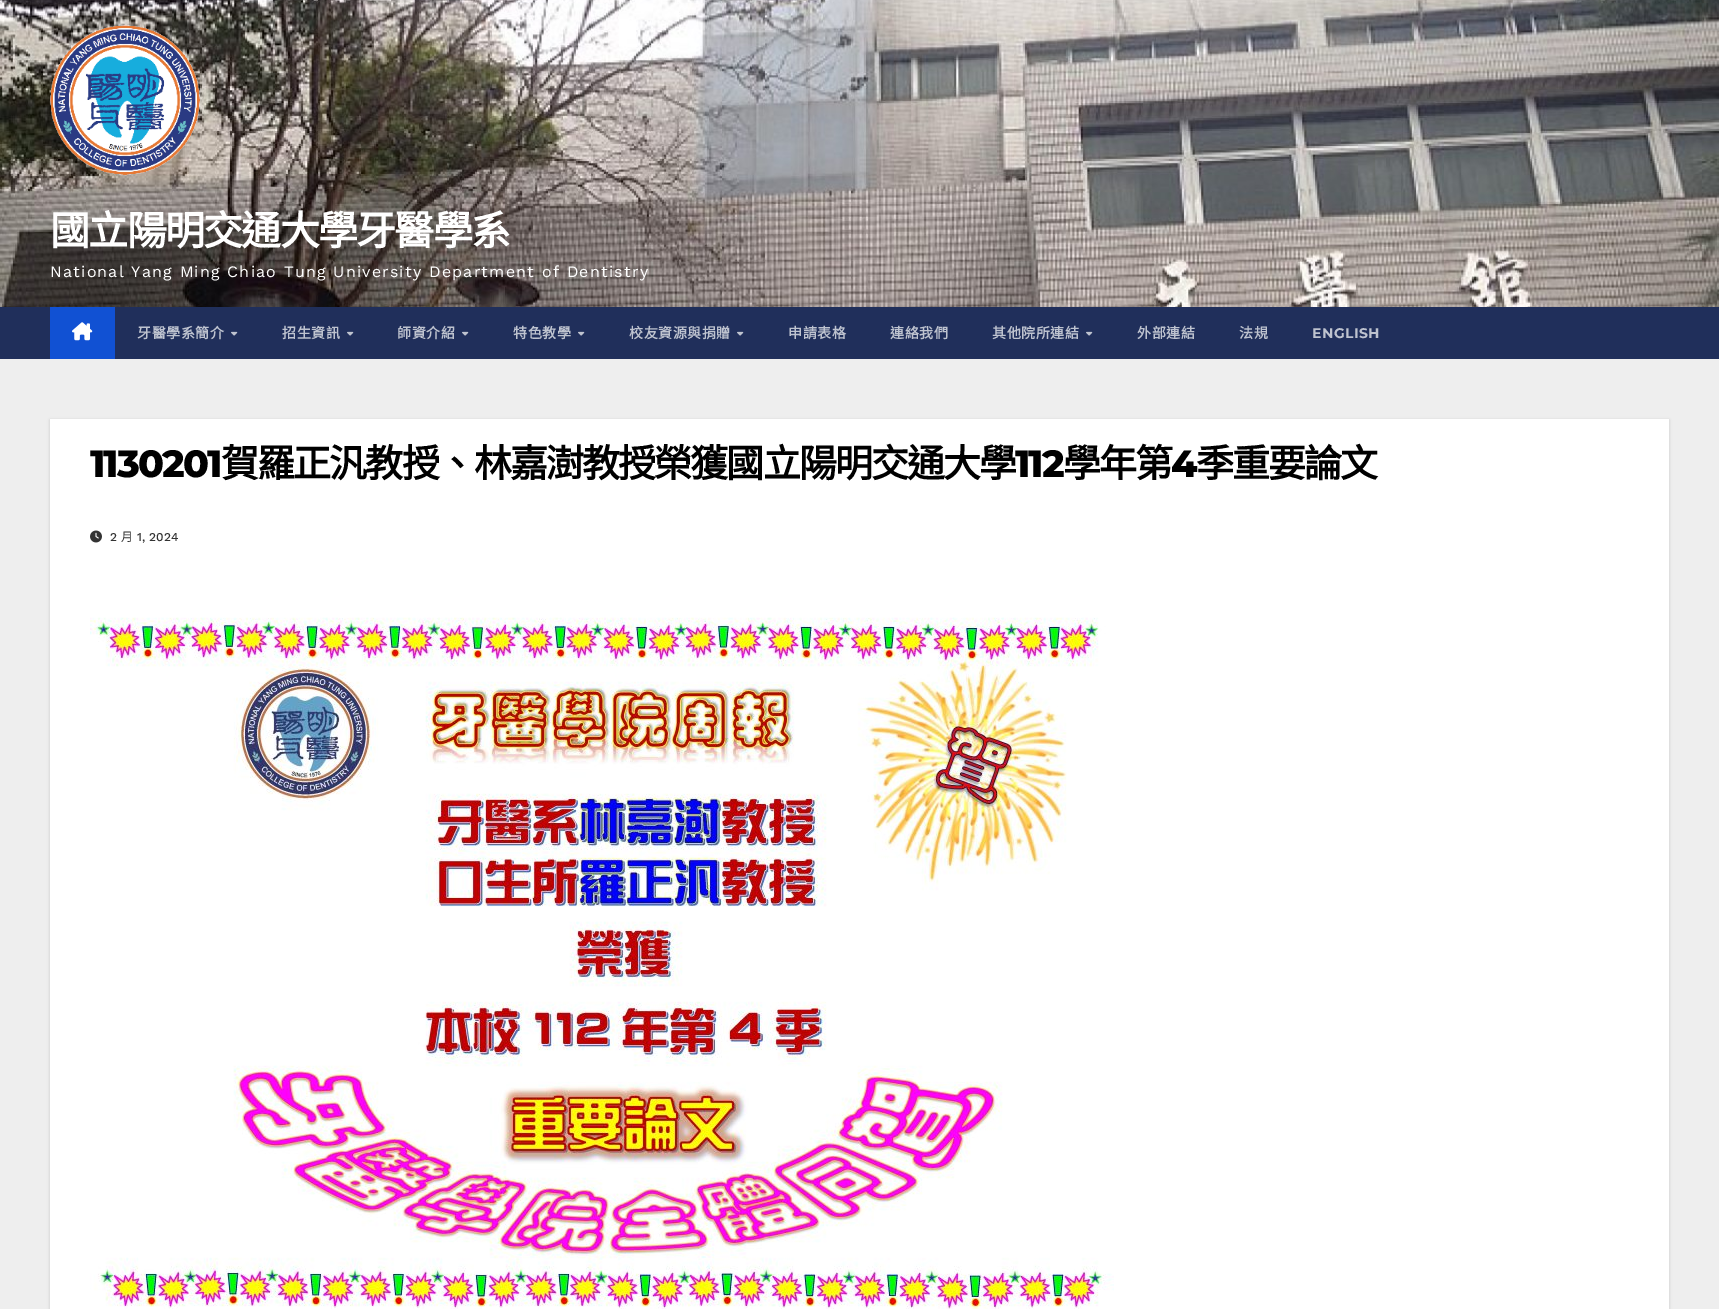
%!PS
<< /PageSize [1719 1309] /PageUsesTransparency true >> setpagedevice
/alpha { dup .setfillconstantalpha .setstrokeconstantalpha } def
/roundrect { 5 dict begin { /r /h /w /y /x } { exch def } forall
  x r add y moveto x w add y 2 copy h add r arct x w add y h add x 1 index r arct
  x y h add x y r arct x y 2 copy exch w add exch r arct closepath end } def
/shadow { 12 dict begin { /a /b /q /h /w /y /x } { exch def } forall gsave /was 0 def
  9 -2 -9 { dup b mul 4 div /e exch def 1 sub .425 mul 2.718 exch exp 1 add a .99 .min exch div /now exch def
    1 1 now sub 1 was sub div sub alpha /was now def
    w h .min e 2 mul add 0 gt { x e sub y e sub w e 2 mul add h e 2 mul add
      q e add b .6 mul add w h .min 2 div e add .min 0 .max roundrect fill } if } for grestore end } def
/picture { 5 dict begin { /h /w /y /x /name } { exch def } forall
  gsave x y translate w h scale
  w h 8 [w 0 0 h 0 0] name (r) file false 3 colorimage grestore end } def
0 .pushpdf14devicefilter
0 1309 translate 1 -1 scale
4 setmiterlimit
0.933 setgray
0 0 1719 1309 rectfill
(img1.rgb) 0 0 1719 307 picture
(img2.rgb) 50 25 150 150 picture
/NotoSansCJKTC-Bold [40 0 0 -40 0 0] selectfont
1 setgray
50 245 moveto -1.75 0 (國立陽明交通大學牙醫學系) ashow
/WorkSans-Regular [16 0 0 -16 0 0] selectfont
50 277 moveto 1.2 0 (National Yang Ming Chiao Tung University Department of Dentistry) ashow
0.125 0.184 0.357 setrgbcolor
0 307 1719 52 rectfill
0.067 0.318 0.827 setrgbcolor
50 307 65 52 rectfill
(img3.rgb) 72 322 21 19 picture
/NotoSansCJKTC-Bold [14 0 0 -14 0 0] selectfont
0.745 0.765 0.812 setrgbcolor
137 338 moveto 0.5 0 (牙醫學系簡介) ashow
(img4.rgb) 231 331 7 5 picture
282 338 moveto 0.5 0 (招生資訊) ashow
(img4.rgb) 347 331 7 5 picture
397 338 moveto 0.5 0 (師資介紹) ashow
(img4.rgb) 462 331 7 5 picture
513 338 moveto 0.5 0 (特色教學) ashow
(img4.rgb) 578 331 7 5 picture
629 338 moveto 0.5 0 (校友資源與捐贈) ashow
(img4.rgb) 737 331 7 5 picture
788 338 moveto 0.5 0 (申請表格) ashow
890 338 moveto 0.5 0 (連絡我們) ashow
992 338 moveto 0.5 0 (其他院所連結) ashow
(img4.rgb) 1086 331 7 5 picture
1137 338 moveto 0.5 0 (外部連結) ashow
1239 338 moveto 0.5 0 (法規) ashow
/Montserrat-Bold [14 0 0 -14 0 0] selectfont
1312 338 moveto 0.5 0 (ENGLISH) ashow
0 setgray
50 420 1619 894 0 1.5 0.15 shadow
1 setgray
50 419 1619 890 rectfill
/Montserrat-ExtraBold [38 0 0 -38 0 0] selectfont
0 setgray
90 477 moveto -1.9 0 (1130201) ashow
/NotoSansCJKTC-Bold [38 0 0 -38 0 0] selectfont
221 477 moveto -1.9 0 (賀羅正汎教授、林嘉澍教授榮獲國立陽明交通大學) ashow
/Montserrat-ExtraBold [38 0 0 -38 0 0] selectfont
1015 477 moveto -1.9 0 (112) ashow
/NotoSansCJKTC-Bold [38 0 0 -38 0 0] selectfont
1063 477 moveto -1.9 0 (學年第) ashow
/Montserrat-ExtraBold [38 0 0 -38 0 0] selectfont
1171 477 moveto -1.9 0 (4) ashow
/NotoSansCJKTC-Bold [38 0 0 -38 0 0] selectfont
1196 477 moveto -1.9 0 (季重要論文) ashow
(img5.rgb) 90 530 12 13 picture
/WorkSans-Medium [12 0 0 -12 0 0] selectfont
0.2 setgray
110 541 moveto (2) show
/NotoSansCJKTC-Regular [12 0 0 -12 0 0] selectfont
121 541 moveto (月) show
/WorkSans-Medium [12 0 0 -12 0 0] selectfont
137 541 moveto (1, 2024) show
(img6.rgb) 90 617 1024 692 picture
.poppdf14devicefilter showpage
